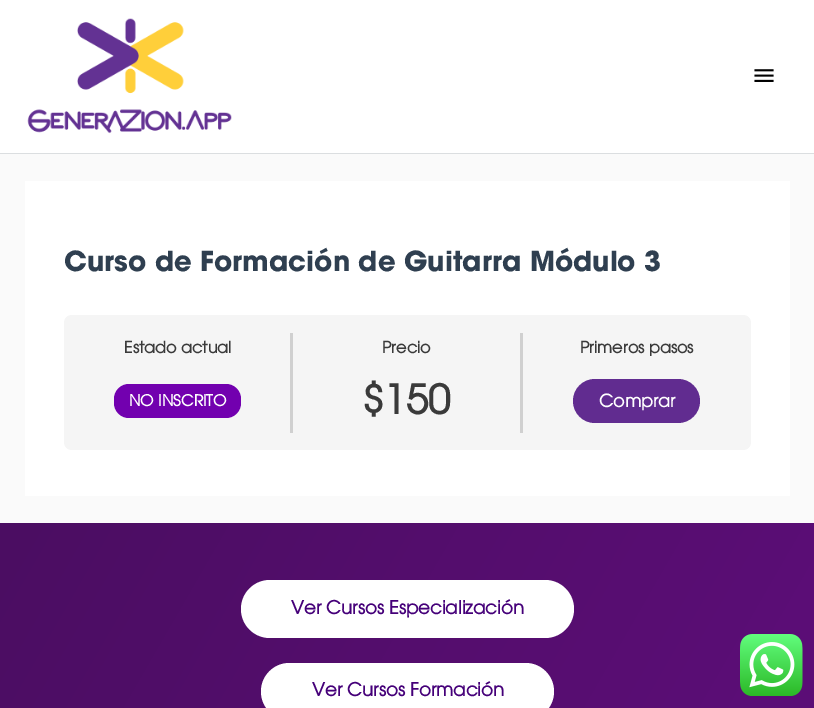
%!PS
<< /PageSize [814 708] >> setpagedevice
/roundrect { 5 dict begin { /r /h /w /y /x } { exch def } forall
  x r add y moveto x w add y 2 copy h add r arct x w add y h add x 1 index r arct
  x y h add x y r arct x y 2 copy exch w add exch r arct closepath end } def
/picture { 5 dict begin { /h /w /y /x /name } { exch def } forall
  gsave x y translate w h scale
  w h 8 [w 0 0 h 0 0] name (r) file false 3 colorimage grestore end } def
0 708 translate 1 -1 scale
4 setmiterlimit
0.98 setgray
0 0 814 708 rectfill
1 setgray
0 0 814 153 rectfill
0.859 0.871 0.878 setrgbcolor
0 153 814 1 rectfill
(img1.rgb) 27 18 205 116 picture
(img2.rgb) 754 69 20 13 picture
1 setgray
25 181 765 315 rectfill
/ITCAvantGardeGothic-Bold [27.5 0 0 -27.5 0 0] selectfont
0.184 0.247 0.314 setrgbcolor
64 271 moveto (Curso de Formación de Guitarra Módulo 3) show
0.961 setgray
64 315 687 135 8 roundrect fill
0.816 setgray
290 333 3 100 rectfill
/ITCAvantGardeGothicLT-Bold [16 0 0 -16 0 0] selectfont
0.227 setgray
124 353 moveto (Estado actual) show
0.447 0 0.686 setrgbcolor
114 384 127 34 15 roundrect fill
/ITCAvantGardeGothicLT-Bold [15.5 0 0 -15.5 0 0] selectfont
1 setgray
129 406 moveto (NO INSCRITO) show
0.816 setgray
520 333 3 100 rectfill
/ITCAvantGardeGothicLT-Bold [16 0 0 -16 0 0] selectfont
0.227 setgray
382 353 moveto (Precio) show
/ITCAvantGardeGothicLT-Bold [40 0 0 -40 0 0] selectfont
362 414 moveto ($150) show
/ITCAvantGardeGothicLT-Bold [16 0 0 -16 0 0] selectfont
580 353 moveto (Primeros pasos) show
0.38 0.173 0.565 setrgbcolor
573 379 127 44 22 roundrect fill
/ITCAvantGardeGothicLT-Bold [17.5 0 0 -17.5 0 0] selectfont
1 setgray
599 407 moveto (Comprar) show
gsave newpath 0 523 moveto 814 523 lineto 814 708 lineto 0 708 lineto closepath clip newpath
<< /ShadingType 2 /ColorSpace /DeviceRGB /Coords [-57 621 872 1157] /Extend [true true] /Function << /FunctionType 3 /Domain [0 1] /Functions [<< /FunctionType 2 /Domain [0 1] /C0 [0.294 0.051 0.384] /C1 [0.357 0.051 0.463] /N 1 >> << /FunctionType 2 /Domain [0 1] /C0 [0.357 0.051 0.463] /C1 [0.357 0.051 0.463] /N 1 >>] /Bounds [0.69] /Encode [0 1 0 1] >> >> shfill grestore
241 580 333 58 29 roundrect fill
/ITCAvantGardeGothicLT-Bold [18.25 0 0 -18.25 0 0] selectfont
0.271 0 0.475 setrgbcolor
291 614 moveto (Ver Cursos Especialización) show
1 setgray
261 663 293 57 28.5 roundrect fill
0.271 0 0.475 setrgbcolor
312 696 moveto (Ver Cursos Formación) show
(img3.rgb) 740 634 63 62 picture
showpage
